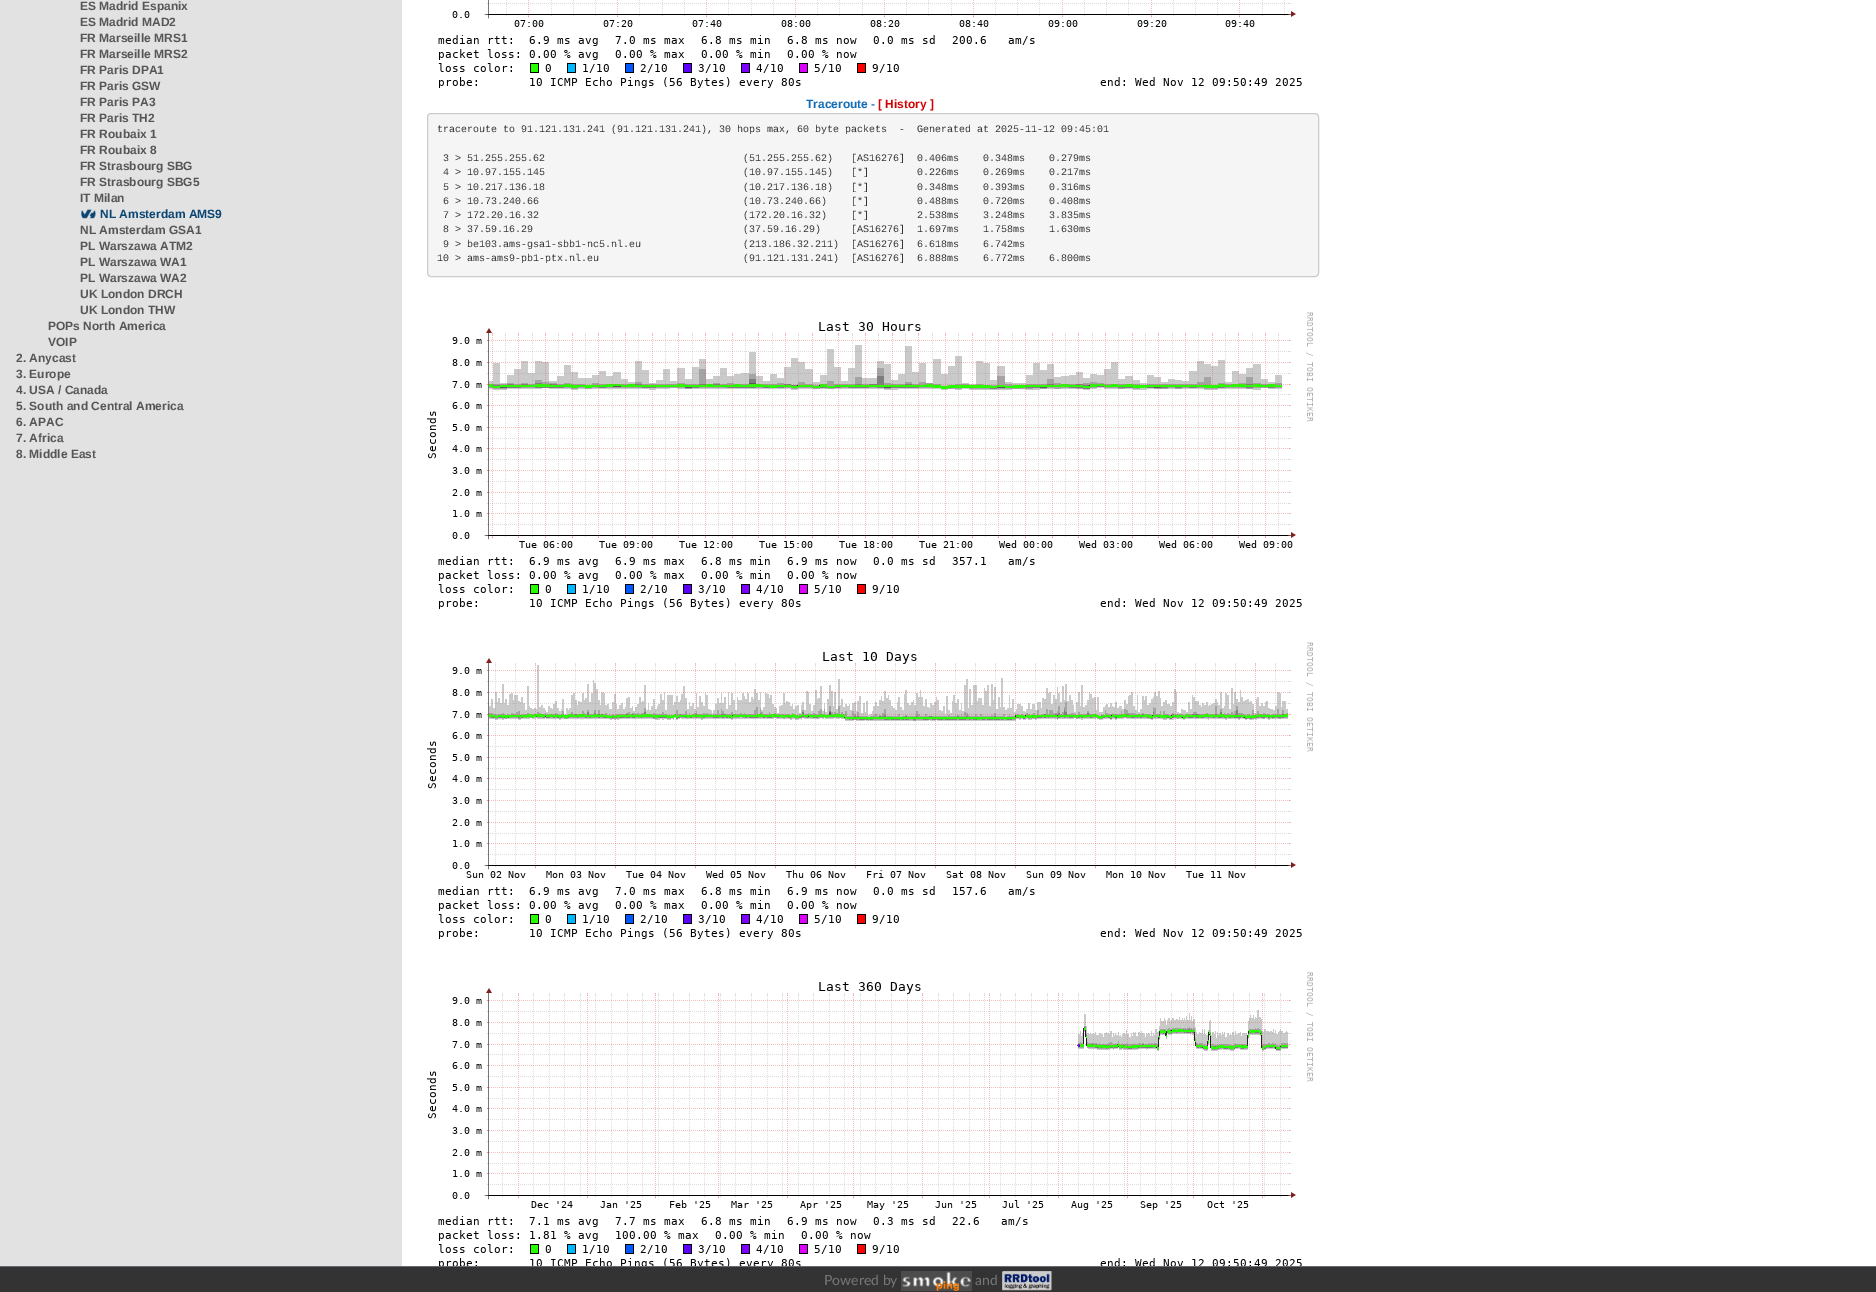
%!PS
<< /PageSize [1876 1292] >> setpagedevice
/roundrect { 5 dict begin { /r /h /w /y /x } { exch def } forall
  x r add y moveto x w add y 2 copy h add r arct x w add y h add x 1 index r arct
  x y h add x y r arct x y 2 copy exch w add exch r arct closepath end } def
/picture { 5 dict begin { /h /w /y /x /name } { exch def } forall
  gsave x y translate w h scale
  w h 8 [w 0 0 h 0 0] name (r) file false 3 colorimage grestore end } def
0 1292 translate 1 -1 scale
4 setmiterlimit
1 setgray
0 0 1876 1292 rectfill
0.886 setgray
0 0 402 1266 rectfill
/LiberationSans-Bold [12 0 0 -12 0 0] selectfont
0.337 setgray
80 10 moveto (ES Madrid Espanix) show
80 26 moveto (ES Madrid MAD2) show
80 42 moveto (FR Marseille MRS1) show
80 58 moveto (FR Marseille MRS2) show
80 74 moveto (FR Paris DPA1) show
80 90 moveto (FR Paris GSW) show
80 106 moveto (FR Paris PA3) show
80 122 moveto (FR Paris TH2) show
80 138 moveto (FR Roubaix 1) show
80 154 moveto (FR Roubaix 8) show
80 170 moveto (FR Strasbourg SBG) show
80 186 moveto (FR Strasbourg SBG5) show
80 202 moveto (IT Milan) show
(img1.rgb) 81 209 15 10 picture
0.043 0.275 0.447 setrgbcolor
100 218 moveto (NL Amsterdam AMS9) show
0.337 setgray
80 234 moveto (NL Amsterdam GSA1) show
80 250 moveto (PL Warszawa ATM2) show
80 266 moveto (PL Warszawa WA1) show
80 282 moveto (PL Warszawa WA2) show
80 298 moveto (UK London DRCH) show
80 314 moveto (UK London THW) show
48 330 moveto (POPs North America) show
48 346 moveto (VOIP) show
16 362 moveto (2. Anycast) show
16 378 moveto (3. Europe) show
16 394 moveto (4. USA / Canada) show
16 410 moveto (5. South and Central America) show
16 426 moveto (6. APAC) show
16 442 moveto (7. Africa) show
16 458 moveto (8. Middle East) show
(img2.rgb) 438 0 864 88 picture
0.063 0.424 0.714 setrgbcolor
806 108 moveto (Traceroute -) show
0.831 0 0 setrgbcolor
878 108 moveto ([ History ]) show
0.961 setgray
427.5 113.5 891 163 3.5 roundrect gsave fill grestore
0.8 setgray
stroke
/LiberationMono-Regular [10 0 0 -10 0 0] selectfont
0.2 setgray
437 132 moveto (traceroute to 91.121.131.241 \(91.121.131.241\), 30 hops max, 60 byte packets  -  Generated at 2025-11-12 09:45:01) show
443 161 moveto (3 > 51.255.255.62                                 \(51.255.255.62\)   [AS16276]  0.406ms    0.348ms    0.279ms) show
443 175 moveto (4 > 10.97.155.145                                 \(10.97.155.145\)   [*]        0.226ms    0.269ms    0.217ms) show
443 190 moveto (5 > 10.217.136.18                                 \(10.217.136.18\)   [*]        0.348ms    0.393ms    0.316ms) show
443 204 moveto (6 > 10.73.240.66                                  \(10.73.240.66\)    [*]        0.488ms    0.720ms    0.408ms) show
443 218 moveto (7 > 172.20.16.32                                  \(172.20.16.32\)    [*]        2.538ms    3.248ms    3.835ms) show
443 232 moveto (8 > 37.59.16.29                                   \(37.59.16.29\)     [AS16276]  1.697ms    1.758ms    1.630ms) show
443 247 moveto (9 > be103.ams-gsa1-sbb1-nc5.nl.eu                 \(213.186.32.211\)  [AS16276]  6.618ms    6.742ms) show
437 261 moveto (10 > ams-ams9-pb1-ptx.nl.eu                        \(91.121.131.241\)  [AS16276]  6.888ms    6.772ms    6.800ms) show
(img3.rgb) 427 312 886 297 picture
(img4.rgb) 427 642 886 297 picture
(img5.rgb) 427 972 886 294 picture
0 1267 1876 25 rectfill
0.4 0.416 0.451 setrgbcolor
0 1266 1876 1 rectfill
/Lato-Regular [14 0 0 -14 0 0] selectfont
0.467 setgray
824 1285 moveto (Powered by) show
(img6.rgb) 901 1271 71 20 picture
975 1285 moveto (and) show
(img7.rgb) 1002 1271 50 20 picture
showpage
